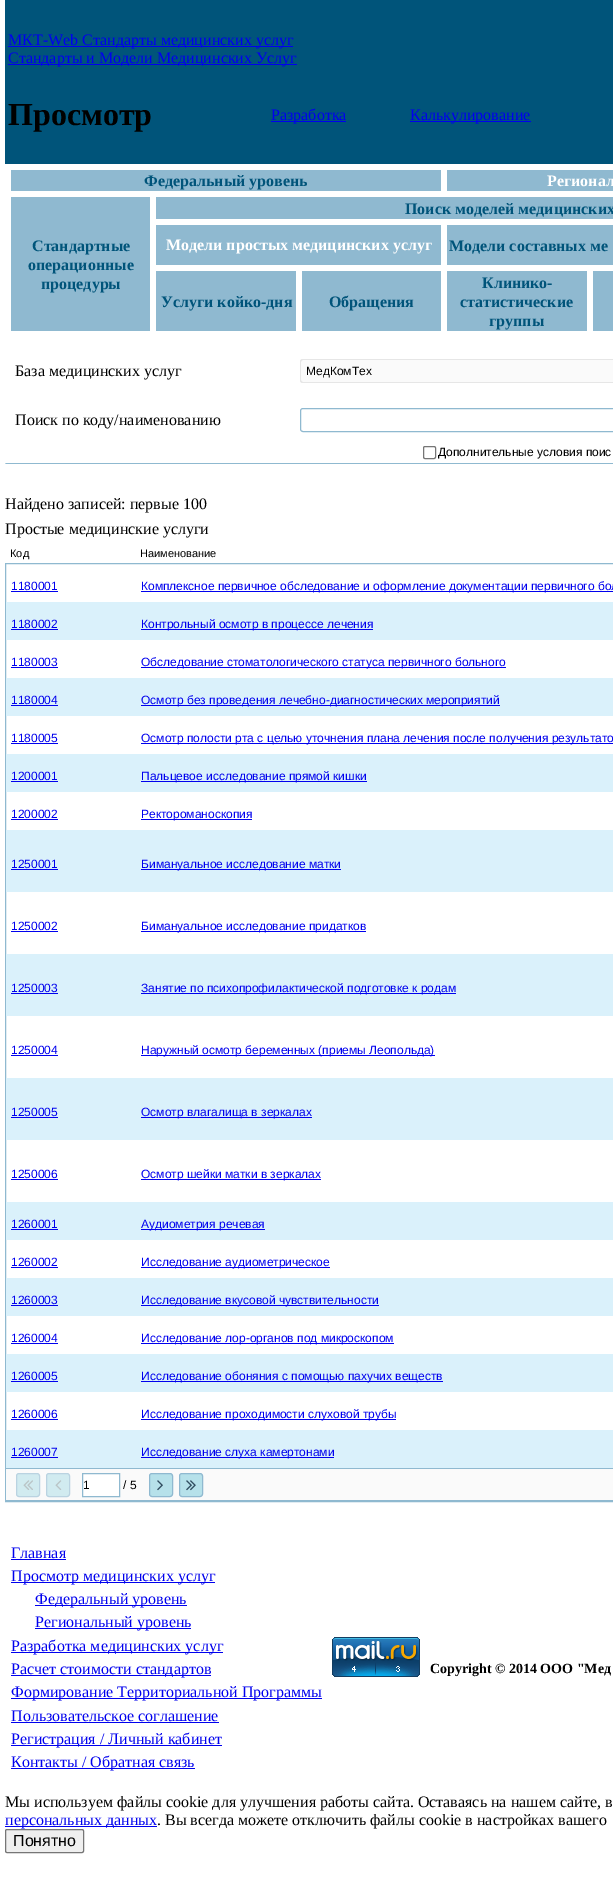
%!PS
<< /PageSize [613 1881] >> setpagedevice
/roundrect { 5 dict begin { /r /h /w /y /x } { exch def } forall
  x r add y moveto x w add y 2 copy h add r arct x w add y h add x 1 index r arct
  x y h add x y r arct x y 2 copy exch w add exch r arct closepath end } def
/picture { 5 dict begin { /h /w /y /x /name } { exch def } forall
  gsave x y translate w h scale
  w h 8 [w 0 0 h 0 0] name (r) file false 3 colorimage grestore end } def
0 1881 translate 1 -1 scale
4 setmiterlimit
1 setgray
0 0 613 1881 rectfill
0 0.329 0.478 setrgbcolor
5 0 608 164 rectfill
0 0 0.933 setrgbcolor
8 46 285 1 rectfill
/LiberationSerif-Regular [16 0 0 -16 0 0] selectfont
8 45 moveto (МКТ-Web Стандарты медицинских услуг) show
8 64 289 1 rectfill
8 63 moveto (Стандарты и Модели Медицинских Услуг) show
/LiberationSerif-Bold [32 0 0 -32 0 0] selectfont
0 setgray
8 125 moveto (Просмотр) show
0 0 0.933 setrgbcolor
271 121 75 1 rectfill
/LiberationSerif-Regular [16 0 0 -16 0 0] selectfont
271 120 moveto (Разработка) show
410 121 121 1 rectfill
410 120 moveto (Калькулирование) show
0.561 0.725 0.816 setrgbcolor
11 170 430 21 rectfill
/LiberationSerif-Bold [16 0 0 -16 0 0] selectfont
0 0.329 0.478 setrgbcolor
144 186 moveto (Федеральный уровень) show
0.561 0.725 0.816 setrgbcolor
447 170 166 21 rectfill
1 setgray
547 186 moveto (Регионал) show
0.561 0.725 0.816 setrgbcolor
156 197 457 22 rectfill
0 0.329 0.478 setrgbcolor
405 214 moveto (Поиск моделей медицинских) show
0.561 0.725 0.816 setrgbcolor
11 197 139 134 rectfill
0 0.329 0.478 setrgbcolor
32 251 moveto (Стандартные) show
28 270 moveto (операционные) show
41 289 moveto (процедуры) show
0.561 0.725 0.816 setrgbcolor
156 225 285 40 rectfill
1 setgray
166 250 moveto (Модели простых медицинских услуг) show
0.561 0.725 0.816 setrgbcolor
447 225 166 40 rectfill
0 0.329 0.478 setrgbcolor
449 251 moveto (Модели составных ме) show
0.561 0.725 0.816 setrgbcolor
156 271 140 60 rectfill
0 0.329 0.478 setrgbcolor
161 307 moveto (Услуги койко-дня) show
0.561 0.725 0.816 setrgbcolor
302 271 139 60 rectfill
0 0.329 0.478 setrgbcolor
329 307 moveto (Обращения) show
0.561 0.725 0.816 setrgbcolor
447 271 140 60 rectfill
0 0.329 0.478 setrgbcolor
482 288 moveto (Клинико-) show
460 307 moveto (статистические) show
489 326 moveto (группы) show
0.561 0.725 0.816 setrgbcolor
593 271 20 60 rectfill
/LiberationSerif-Regular [16 0 0 -16 0 0] selectfont
0 setgray
15 376 moveto (База медицинских услуг) show
0.98 setgray
newpath 303 359 moveto 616 359 lineto 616 383 lineto 303 383 lineto 301.5 383 300 381.5 300 380 curveto 300 362 lineto 300 360.5 301.5 359 303 359 curveto closepath fill
0.902 setgray
newpath 303 359 moveto 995 359 lineto 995 383 lineto 303 383 lineto 301 383 300 382 300 380 curveto 300 362 lineto 300 360 301 359 303 359 curveto closepath 303 360 moveto 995 360 lineto 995 382 lineto 303 382 lineto 302 382 301 381 301 380 curveto 301 362 lineto 301 361 302 360 303 360 curveto closepath eofill
/LiberationSans-Regular [12 0 0 -12 0 0] selectfont
0 setgray
306 375 moveto (МедКомТех) show
/LiberationSerif-Regular [16 0 0 -16 0 0] selectfont
15 425 moveto (Поиск по коду/наименованию) show
0.561 0.725 0.816 setrgbcolor
300.5 408.5 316 23 2.5 roundrect stroke
newpath 5 463 moveto 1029 463 lineto 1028 464 lineto 6 464 lineto closepath fill
0.463 setgray
423.5 446.5 12 12 1.5 roundrect stroke
/LiberationSans-Regular [12 0 0 -12 0 0] selectfont
0 setgray
438 456 moveto (Дополнительные условия поис) show
/LiberationSerif-Regular [16 0 0 -16 0 0] selectfont
5 509 moveto (Найдено записей: первые 100) show
5 534 moveto (Простые медицинские услуги) show
/LiberationSans-Regular [11 0 0 -11 0 0] selectfont
10 557 moveto (Код) show
140 557 moveto (Наименование) show
0.561 0.725 0.816 setrgbcolor
5.5 563.5 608 938 rectstroke
/LiberationSans-Regular [12 0 0 -12 0 0] selectfont
0 0 0.933 setrgbcolor
11 590 moveto (1180001) show
11 591 47 1 rectfill
141 591 472 1 rectfill
141 590 moveto (Комплексное первичное обследование и оформление документации первичного бол) show
0.855 0.945 0.984 setrgbcolor
6 602 607 38 rectfill
0 0 0.933 setrgbcolor
11 628 moveto (1180002) show
11 629 47 1 rectfill
141 629 232 1 rectfill
141 628 moveto (Контрольный осмотр в процессе лечения) show
11 666 moveto (1180003) show
11 667 47 1 rectfill
141 667 365 1 rectfill
141 666 moveto (Обследование стоматологического статуса первичного больного) show
0.855 0.945 0.984 setrgbcolor
6 678 607 38 rectfill
0 0 0.933 setrgbcolor
11 704 moveto (1180004) show
11 705 47 1 rectfill
141 705 359 1 rectfill
141 704 moveto (Осмотр без проведения лечебно-диагностических мероприятий) show
11 742 moveto (1180005) show
11 743 47 1 rectfill
141 743 472 1 rectfill
141 742 moveto (Осмотр полости рта с целью уточнения плана лечения после получения результато) show
0.855 0.945 0.984 setrgbcolor
6 754 607 38 rectfill
0 0 0.933 setrgbcolor
11 780 moveto (1200001) show
11 781 47 1 rectfill
141 781 226 1 rectfill
141 780 moveto (Пальцевое исследование прямой кишки) show
11 818 moveto (1200002) show
11 819 47 1 rectfill
141 819 111 1 rectfill
141 818 moveto (Ректороманоскопия) show
0.855 0.945 0.984 setrgbcolor
6 830 607 62 rectfill
0 0 0.933 setrgbcolor
11 868 moveto (1250001) show
11 869 47 1 rectfill
141 869 200 1 rectfill
141 868 moveto (Бимануальное исследование матки) show
11 930 moveto (1250002) show
11 931 47 1 rectfill
141 931 225 1 rectfill
141 930 moveto (Бимануальное исследование придатков) show
0.855 0.945 0.984 setrgbcolor
6 954 607 62 rectfill
0 0 0.933 setrgbcolor
11 992 moveto (1250003) show
11 993 47 1 rectfill
141 993 315 1 rectfill
141 992 moveto (Занятие по психопрофилактической подготовке к родам) show
11 1054 moveto (1250004) show
11 1055 47 1 rectfill
141 1055 294 1 rectfill
141 1054 moveto (Наружный осмотр беременных \(приемы Леопольда\)) show
0.855 0.945 0.984 setrgbcolor
6 1078 607 62 rectfill
0 0 0.933 setrgbcolor
11 1116 moveto (1250005) show
11 1117 47 1 rectfill
141 1117 171 1 rectfill
141 1116 moveto (Осмотр влагалища в зеркалах) show
11 1178 moveto (1250006) show
11 1179 47 1 rectfill
141 1179 180 1 rectfill
141 1178 moveto (Осмотр шейки матки в зеркалах) show
0.855 0.945 0.984 setrgbcolor
6 1202 607 38 rectfill
0 0 0.933 setrgbcolor
11 1228 moveto (1260001) show
11 1229 47 1 rectfill
141 1229 124 1 rectfill
141 1228 moveto (Аудиометрия речевая) show
11 1266 moveto (1260002) show
11 1267 47 1 rectfill
141 1267 189 1 rectfill
141 1266 moveto (Исследование аудиометрическое) show
0.855 0.945 0.984 setrgbcolor
6 1278 607 38 rectfill
0 0 0.933 setrgbcolor
11 1304 moveto (1260003) show
11 1305 47 1 rectfill
141 1305 238 1 rectfill
141 1304 moveto (Исследование вкусовой чувствительности) show
11 1342 moveto (1260004) show
11 1343 47 1 rectfill
141 1343 253 1 rectfill
141 1342 moveto (Исследование лор-органов под микроскопом) show
0.855 0.945 0.984 setrgbcolor
6 1354 607 38 rectfill
0 0 0.933 setrgbcolor
11 1380 moveto (1260005) show
11 1381 47 1 rectfill
141 1381 302 1 rectfill
141 1380 moveto (Исследование обоняния с помощью пахучих веществ) show
11 1418 moveto (1260006) show
11 1419 47 1 rectfill
141 1419 255 1 rectfill
141 1418 moveto (Исследование проходимости слуховой трубы) show
0.855 0.945 0.984 setrgbcolor
6 1430 607 38 rectfill
0 0 0.933 setrgbcolor
11 1456 moveto (1260007) show
11 1457 47 1 rectfill
141 1457 193 1 rectfill
141 1456 moveto (Исследование слуха камертонами) show
0.561 0.725 0.816 setrgbcolor
6 1468 607 1 rectfill
0.98 setgray
6 1469 607 31 rectfill
0.561 0.725 0.816 setrgbcolor
6 1500 607 1 rectfill
0.82 0.922 0.941 setrgbcolor
16.5 1473.5 23 23 2.5 roundrect gsave fill grestore
0.729 0.827 0.882 setrgbcolor
stroke
(img1.rgb) 23 1480 10 10 picture
0.82 0.922 0.941 setrgbcolor
46.5 1473.5 23 23 2.5 roundrect gsave fill grestore
0.729 0.827 0.882 setrgbcolor
stroke
(img2.rgb) 55 1480 7 10 picture
1 setgray
newpath 82.5 1473.5 moveto 119.5 1473.5 lineto 119.5 1496.5 lineto 82.5 1496.5 lineto closepath gsave fill grestore
0.561 0.725 0.816 setrgbcolor
stroke
0 setgray
83 1489 moveto (1) show
123 1489 moveto (/ 5) show
0.714 0.882 0.918 setrgbcolor
149.5 1473.5 23 23 2.5 roundrect gsave fill grestore
0.561 0.725 0.816 setrgbcolor
stroke
(img3.rgb) 157 1480 6 11 picture
0.714 0.882 0.918 setrgbcolor
179.5 1473.5 23 23 2.5 roundrect gsave fill grestore
0.561 0.725 0.816 setrgbcolor
stroke
(img4.rgb) 186 1480 10 11 picture
/LiberationSerif-Regular [16 0 0 -16 0 0] selectfont
0 0 0.933 setrgbcolor
11 1558 moveto (Главная) show
11 1559 55 1 rectfill
11 1582 204 1 rectfill
11 1581 moveto (Просмотр медицинских услуг) show
35 1605 152 1 rectfill
35 1604 moveto (Федеральный уровень) show
35 1628 156 1 rectfill
35 1627 moveto (Региональный уровень) show
11 1652 212 1 rectfill
11 1651 moveto (Разработка медицинских услуг) show
11 1675 200 1 rectfill
11 1674 moveto (Расчет стоимости стандартов) show
11 1698 311 1 rectfill
11 1697 moveto (Формирование Территориальной Программы) show
11 1721 moveto (Пользовательское соглашение) show
11 1722 208 1 rectfill
11 1745 211 1 rectfill
11 1744 moveto (Регистрация / Личный кабинет) show
11 1768 184 1 rectfill
11 1767 moveto (Контакты / Обратная связь) show
(img5.rgb) 332 1637 88 40 picture
/LiberationSerif-Bold [14 0 0 -14 0 0] selectfont
0 setgray
430 1673 moveto (Copyright © 2014 ООО "Мед) show
/LiberationSerif-Regular [16 0 0 -16 0 0] selectfont
5 1807 moveto (Мы используем файлы cookie для улучшения работы сайта. Оставаясь на нашем сайте, в) show
0 0 0.933 setrgbcolor
5 1826 152 1 rectfill
5 1825 moveto (персональных данных) show
0 setgray
157 1825 moveto (. Вы всегда можете отключить файлы cookie в настройках вашего) show
0.937 setgray
5.5 1829.5 78 23 1.5 roundrect gsave fill grestore
0.463 setgray
stroke
/LiberationSans-Regular [16 0 0 -16 0 0] selectfont
0 setgray
13 1846 moveto (Понятно) show
showpage
